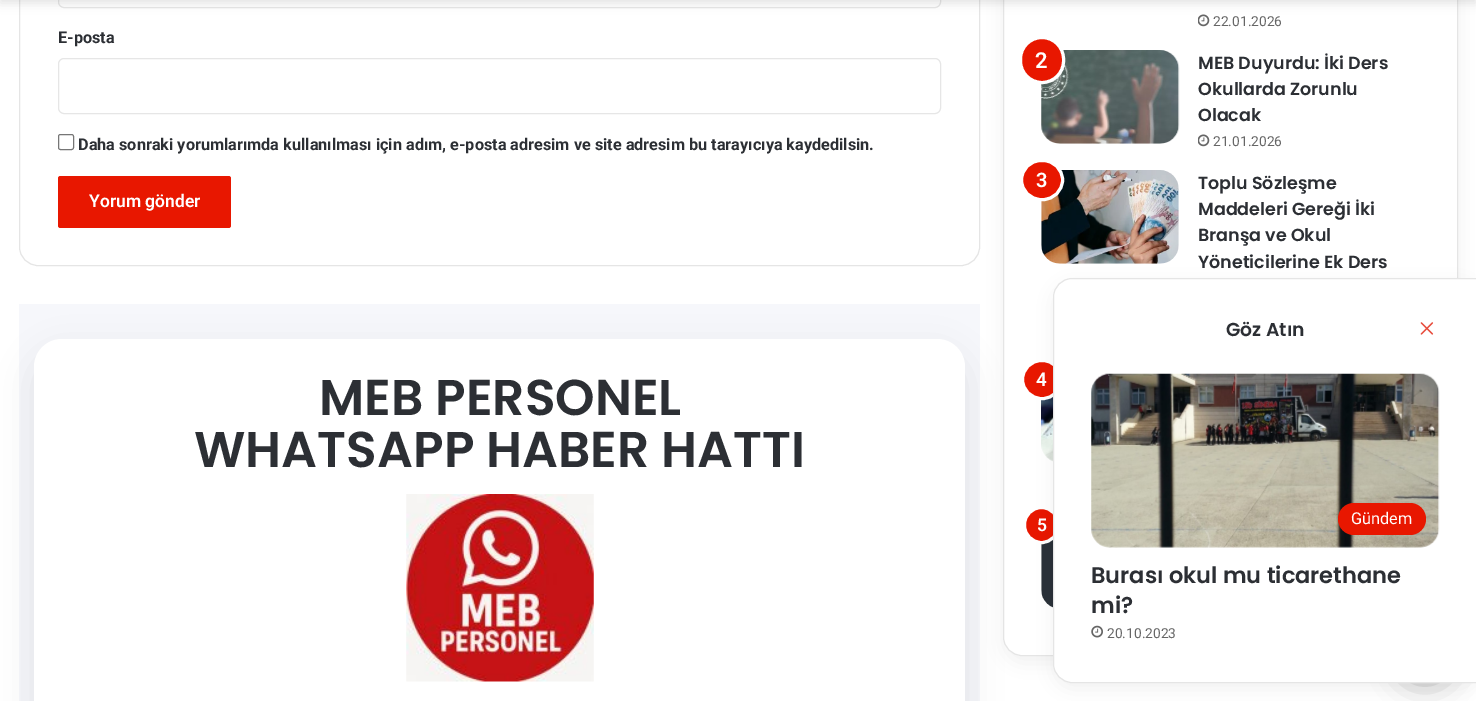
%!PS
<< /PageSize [1476 701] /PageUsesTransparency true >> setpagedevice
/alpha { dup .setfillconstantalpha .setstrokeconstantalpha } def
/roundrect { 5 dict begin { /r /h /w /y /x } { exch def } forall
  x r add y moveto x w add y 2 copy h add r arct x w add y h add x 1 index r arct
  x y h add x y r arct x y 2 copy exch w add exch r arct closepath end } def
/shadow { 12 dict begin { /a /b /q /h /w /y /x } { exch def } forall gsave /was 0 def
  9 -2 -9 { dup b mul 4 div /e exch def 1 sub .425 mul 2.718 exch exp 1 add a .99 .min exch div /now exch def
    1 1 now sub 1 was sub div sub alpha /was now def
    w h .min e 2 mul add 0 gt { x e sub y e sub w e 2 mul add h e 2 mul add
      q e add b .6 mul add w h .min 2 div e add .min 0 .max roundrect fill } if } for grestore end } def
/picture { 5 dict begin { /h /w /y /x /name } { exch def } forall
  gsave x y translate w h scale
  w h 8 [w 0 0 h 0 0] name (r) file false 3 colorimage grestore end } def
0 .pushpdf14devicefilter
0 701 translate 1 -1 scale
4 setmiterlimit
1 setgray
0 0 1476 701 rectfill
0.898 setgray
19.5 -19.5 960 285 18.5 roundrect stroke
0.902 setgray
58.5 -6.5 882 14 5.5 roundrect stroke
0 setgray
1003 -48 455 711 19 9.5 0.05 shadow
1 setgray
1003.5 -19.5 454 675 18.5 roundrect gsave fill grestore
0.898 setgray
stroke
(img2.rgb) 1198 14 12 13 picture
0.388 setgray
0 -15 1476 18 0 5 0.2 shadow
/Roboto-Bold [16.25 0 0 -16.25 0 0] selectfont
0.173 0.184 0.204 setrgbcolor
58 43 moveto (E-posta) show
0.902 setgray
58.5 58.5 882 55 5.5 roundrect stroke
0.463 setgray
58.5 134.5 15 15 2 roundrect stroke
0.173 0.184 0.204 setrgbcolor
78 150 moveto (Daha sonraki yorumlarımda kullanılması için adım, e-posta adresim ve site adresim bu tarayıcıya kaydedilsin.) show
0.91 0.09 0 setrgbcolor
58 176 173 52 2.5 roundrect fill
/Roboto-SemiBold [17.5 0 0 -17.5 0 0] selectfont
1 setgray
89 207 moveto (Yorum gönder) show
0.965 0.969 0.984 setrgbcolor
19 304 961 397 rectfill
0 setgray
34 354 931 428 28 17.5 0.08 shadow
1 setgray
34 339 931 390 28 roundrect fill
/Poppins-SemiBold [50.25 0 0 -50.25 0 0] selectfont
0.173 0.184 0.204 setrgbcolor
319 415 moveto (MEB PERSONEL) show
194 467 moveto (WHATSAPP HABER HATTI) show
(img1.rgb) 406 494 188 188 picture
/Roboto-Regular [13.75 0 0 -13.75 0 0] selectfont
0.4 setgray
1213 26 moveto (22.01.2026) show
(img3.rgb) 1041 50 139 94 picture
0.91 0.09 0 setrgbcolor
1020.5 37.5 43 45 21.5 roundrect gsave fill grestore
1 setgray
3 setlinewidth
stroke
/Roboto-SemiBold [22 0 0 -22 0 0] selectfont
1035 68 moveto (2) show
/Poppins-SemiBold [17.5 0 0 -17.5 0 0] selectfont
0.173 0.184 0.204 setrgbcolor
1198 69 moveto (MEB Duyurdu: İki Ders) show
1198 95 moveto (Okullarda Zorunlu) show
1198 121 moveto (Olacak) show
(img2.rgb) 1198 134 12 13 picture
/Roboto-Regular [13.75 0 0 -13.75 0 0] selectfont
0.4 setgray
1213 146 moveto (21.01.2026) show
(img4.rgb) 1041 170 138 94 picture
0.91 0.09 0 setrgbcolor
1021.5 160.5 41 39 19.5 roundrect gsave fill grestore
1 setgray
stroke
/Roboto-SemiBold [20 0 0 -20 0 0] selectfont
1036 187 moveto (3) show
/Poppins-SemiBold [17.5 0 0 -17.5 0 0] selectfont
0.173 0.184 0.204 setrgbcolor
1198 189 moveto (Toplu Sözleşme) show
1198 215 moveto (Maddeleri Gereği İki) show
1198 241 moveto (Branşa ve Okul) show
1198 268 moveto (Yöneticilerine Ek Ders) show
(img5.rgb) 1041 397 12 65 picture
0.91 0.09 0 setrgbcolor
1022.5 360.5 39 38 19 roundrect gsave fill grestore
1 setgray
stroke
/Roboto-SemiBold [19 0 0 -19 0 0] selectfont
1036 386 moveto (4) show
(img6.rgb) 1041 540 12 68 picture
0.91 0.09 0 setrgbcolor
1024.5 507.5 34 35 17 roundrect gsave fill grestore
1 setgray
stroke
/Roboto-SemiBold [17.5 0 0 -17.5 0 0] selectfont
1037 531 moveto (5) show
0 setgray
1053 284 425 405 19 9.5 0.05 shadow
1399 630 52 53 26 15.5 0.3 shadow
1 setgray
newpath 1072 278.5 moveto 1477.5 278.5 lineto 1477.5 682.5 lineto 1072 682.5 lineto 1062 682.5 1053.5 674 1053.5 664 curveto 1053.5 297 lineto 1053.5 287 1062 278.5 1072 278.5 curveto closepath gsave fill grestore
0.898 setgray
1 setlinewidth
stroke
/Poppins-SemiBold [18.75 0 0 -18.75 0 0] selectfont
0.173 0.184 0.204 setrgbcolor
1226 336 moveto (Göz Atın) show
(img7.rgb) 1420 322 14 13 picture
(img8.rgb) 1091 373 349 175 picture
0.91 0.09 0 setrgbcolor
1338 503 88 32 16 roundrect fill
/Roboto-Regular [16.25 0 0 -16.25 0 0] selectfont
1 setgray
1351 524 moveto (Gündem) show
/Poppins-SemiBold [22.5 0 0 -22.5 0 0] selectfont
0.173 0.184 0.204 setrgbcolor
1091 583 moveto (Burası okul mu ticarethane) show
1091 613 moveto (mi?) show
(img9.rgb) 1091 625 12 13 picture
/Roboto-Regular [13.75 0 0 -13.75 0 0] selectfont
0.4 setgray
1107 638 moveto (20.10.2023) show
.poppdf14devicefilter showpage
